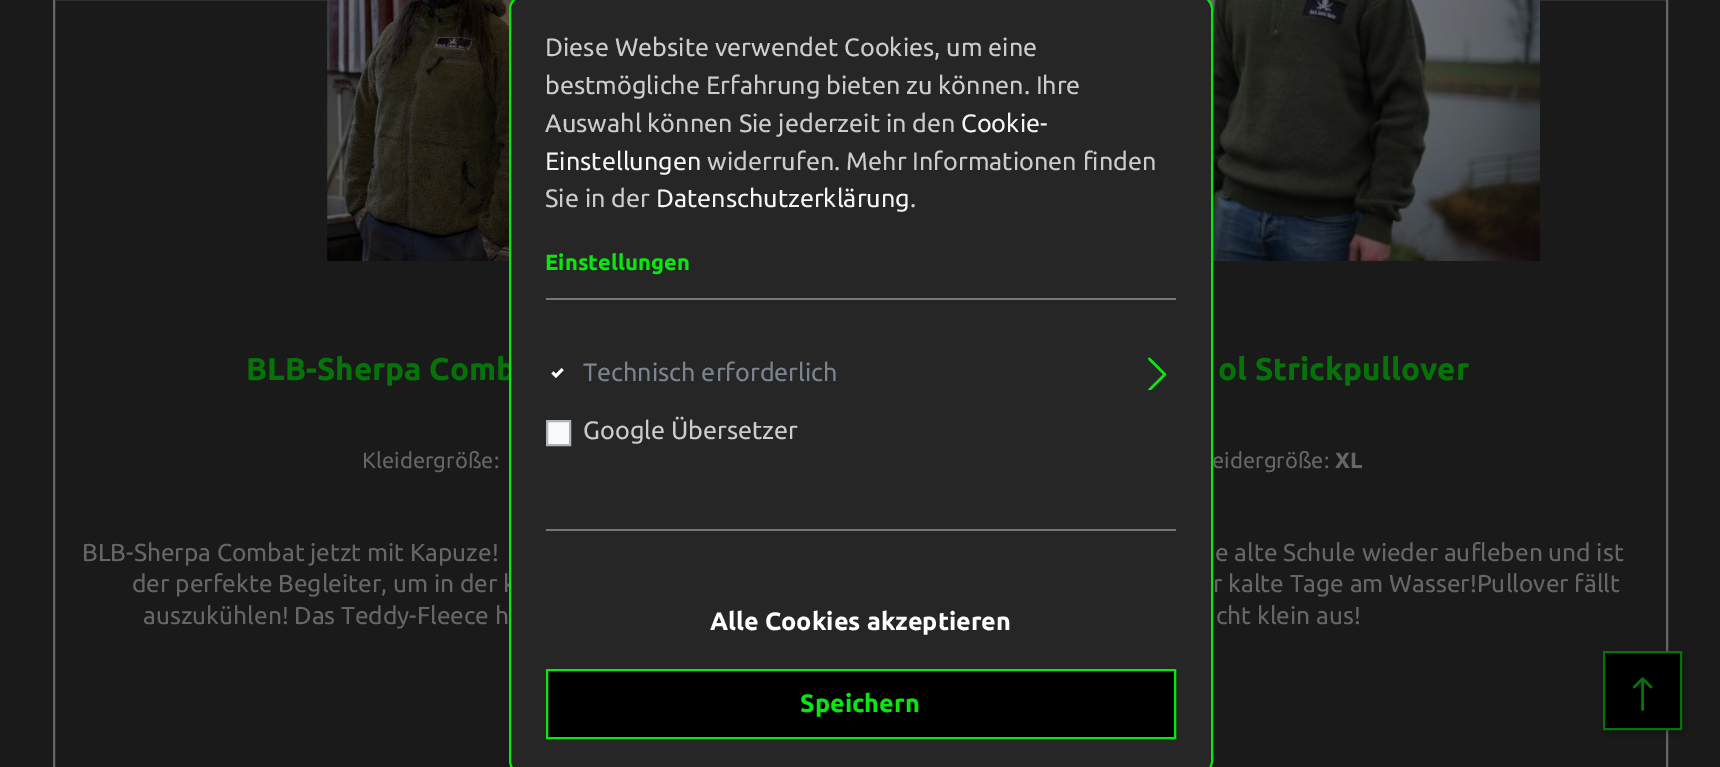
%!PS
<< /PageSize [1720 767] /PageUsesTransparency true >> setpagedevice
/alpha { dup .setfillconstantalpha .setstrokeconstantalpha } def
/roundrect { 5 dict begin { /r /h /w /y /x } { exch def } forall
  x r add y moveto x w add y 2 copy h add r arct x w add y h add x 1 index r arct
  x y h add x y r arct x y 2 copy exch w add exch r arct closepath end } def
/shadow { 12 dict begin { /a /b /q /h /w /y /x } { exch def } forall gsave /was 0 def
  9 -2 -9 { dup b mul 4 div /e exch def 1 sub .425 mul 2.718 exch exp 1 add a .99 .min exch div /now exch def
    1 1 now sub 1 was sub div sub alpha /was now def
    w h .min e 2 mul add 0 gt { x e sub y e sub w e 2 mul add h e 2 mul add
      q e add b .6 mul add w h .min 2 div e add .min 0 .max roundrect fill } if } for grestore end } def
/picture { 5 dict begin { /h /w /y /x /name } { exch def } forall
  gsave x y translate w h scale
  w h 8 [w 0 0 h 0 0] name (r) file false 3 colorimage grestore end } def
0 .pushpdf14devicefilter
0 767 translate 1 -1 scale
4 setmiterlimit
0.102 setgray
0 0 1720 767 rectfill
0.4 setgray
2 setlinewidth
54 -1 780 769 rectstroke
(img3.rgb) 327 0 186 261 picture
/Ubuntu-Bold [31.5 0 0 -31.5 0 0] selectfont
0.02 0.451 0.031 setrgbcolor
246 380 moveto (BLB-Sherpa Comb) show
/Ubuntu-Regular [24.5 0 0 -24.5 0 0] selectfont
0.4 setgray
132 592 moveto (der perfekte Begleiter, um in der k) show
888 -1 779 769 rectstroke
(img4.rgb) 1209 0 331 261 picture
0.149 setgray
510 -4 702 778 13 roundrect gsave fill grestore
0.035 0.902 0.063 setrgbcolor
stroke
0.467 setgray
546 298 630 2 rectfill
/Ubuntu-Regular [25.2 0 0 -25.2 0 0] selectfont
0.8 setgray
545 56 moveto (Diese Website verwendet Cookies, um eine) show
545 94 moveto (bestmögliche Erfahrung bieten zu können. Ihre) show
545 132 moveto (Auswahl können Sie jederzeit in den) show
0.961 setgray
961 132 moveto (Cookie-) show
545 170 moveto (Einstellungen) show
0.8 setgray
707 170 moveto (widerrufen. Mehr Informationen finden) show
545 207 moveto (Sie in der) show
0.961 setgray
656 207 moveto (Datenschutzerklärung) show
0.8 setgray
910 207 moveto (.) show
/Ubuntu-Bold [22 0 0 -22 0 0] selectfont
0.035 0.902 0.063 setrgbcolor
545 270 moveto (Einstellungen) show
0.467 setgray
546 529 630 2 rectfill
(img1.rgb) 551 368 13 10 picture
/Ubuntu-Regular [25.2 0 0 -25.2 0 0] selectfont
0.475 0.518 0.565 setrgbcolor
583 381 moveto (Technisch erforderlich) show
(img2.rgb) 1148 357 19 33 picture
0.98 setgray
newpath 547 421 moveto 570 421 lineto 570 445 lineto 547 445 lineto closepath gsave fill grestore
0.678 0.71 0.741 setrgbcolor
stroke
0.8 setgray
583 439 moveto (Google Übersetzer) show
/Ubuntu-Bold [25.2 0 0 -25.2 0 0] selectfont
1 setgray
710 630 moveto (Alle Cookies akzeptieren) show
0 setgray
newpath 547 670 moveto 1175 670 lineto 1175 738 lineto 547 738 lineto closepath gsave fill grestore
0.035 0.902 0.063 setrgbcolor
stroke
800 712 moveto (Speichern) show
/Ubuntu-Regular [22 0 0 -22 0 0] selectfont
0.4 setgray
362 468 moveto (Kleidergröße:) show
/Ubuntu-Regular [24.5 0 0 -24.5 0 0] selectfont
82 561 moveto (BLB-Sherpa Combat jetzt mit Kapuze!) show
143 624 moveto (auszukühlen! Das Teddy-Fleece h) show
/Ubuntu-Bold [31.5 0 0 -31.5 0 0] selectfont
0.02 0.451 0.031 setrgbcolor
1218 380 moveto (ol Strickpullover) show
/Ubuntu-Regular [22 0 0 -22 0 0] selectfont
0.4 setgray
1212 468 moveto (eidergröße:) show
/Ubuntu-Bold [22 0 0 -22 0 0] selectfont
1335 468 moveto (XL) show
/Ubuntu-Regular [24.5 0 0 -24.5 0 0] selectfont
1215 561 moveto (e alte Schule wieder aufleben und ist) show
1213 592 moveto (r kalte Tage am Wasser!Pullover fällt) show
1216 624 moveto (cht klein aus!) show
0 setgray
1605 655 79 78 0 5 0.3 shadow
newpath 1604 652 moveto 1681 652 lineto 1681 729 lineto 1604 729 lineto closepath gsave fill grestore
0.02 0.451 0.031 setrgbcolor
stroke
(img5.rgb) 1632 677 21 34 picture
.poppdf14devicefilter showpage
